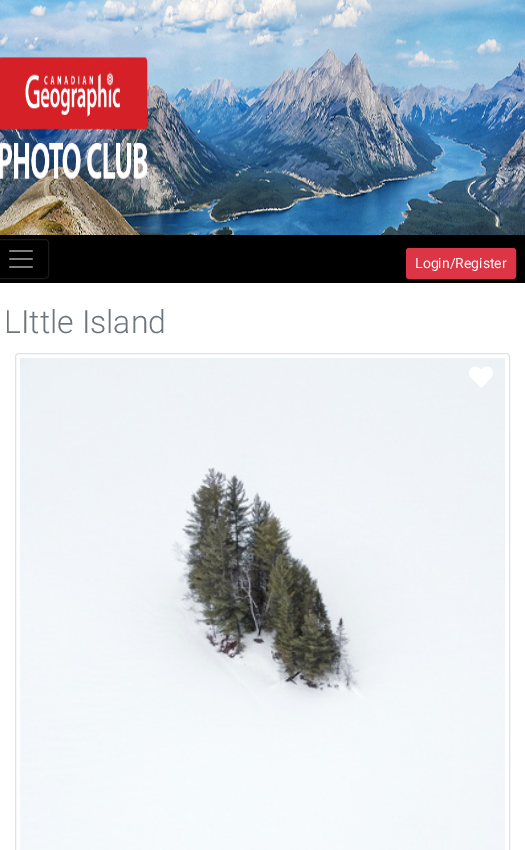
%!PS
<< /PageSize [525 850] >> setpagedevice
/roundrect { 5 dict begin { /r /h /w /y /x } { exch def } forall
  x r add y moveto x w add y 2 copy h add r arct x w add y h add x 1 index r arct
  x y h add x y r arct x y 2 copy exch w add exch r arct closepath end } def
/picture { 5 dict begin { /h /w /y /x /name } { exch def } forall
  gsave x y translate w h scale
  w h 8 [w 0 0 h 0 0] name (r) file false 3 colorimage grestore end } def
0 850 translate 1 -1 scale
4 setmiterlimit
1 setgray
0 0 525 850 rectfill
(img1.rgb) 0 0 525 235 picture
0 setgray
0 235 525 48 rectfill
0.102 setgray
-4.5 239.5 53 39 3.5 roundrect stroke
(img2.rgb) 9 250 24 18 picture
0.863 0.208 0.271 setrgbcolor
406.5 248.5 109 30 2.5 roundrect gsave fill grestore
stroke
/Roboto-Regular [14 0 0 -14 0 0] selectfont
1 setgray
415 268 moveto (Login/Register) show
/Roboto-Light [32 0 0 -32 0 0] selectfont
0.424 0.459 0.49 setrgbcolor
4 333 moveto (LIttle Island) show
0.871 0.886 0.902 setrgbcolor
15.5 353.5 494 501 3.5 roundrect stroke
(img3.rgb) 20 358 485 492 picture
(img4.rgb) 469 366 24 22 picture
showpage
